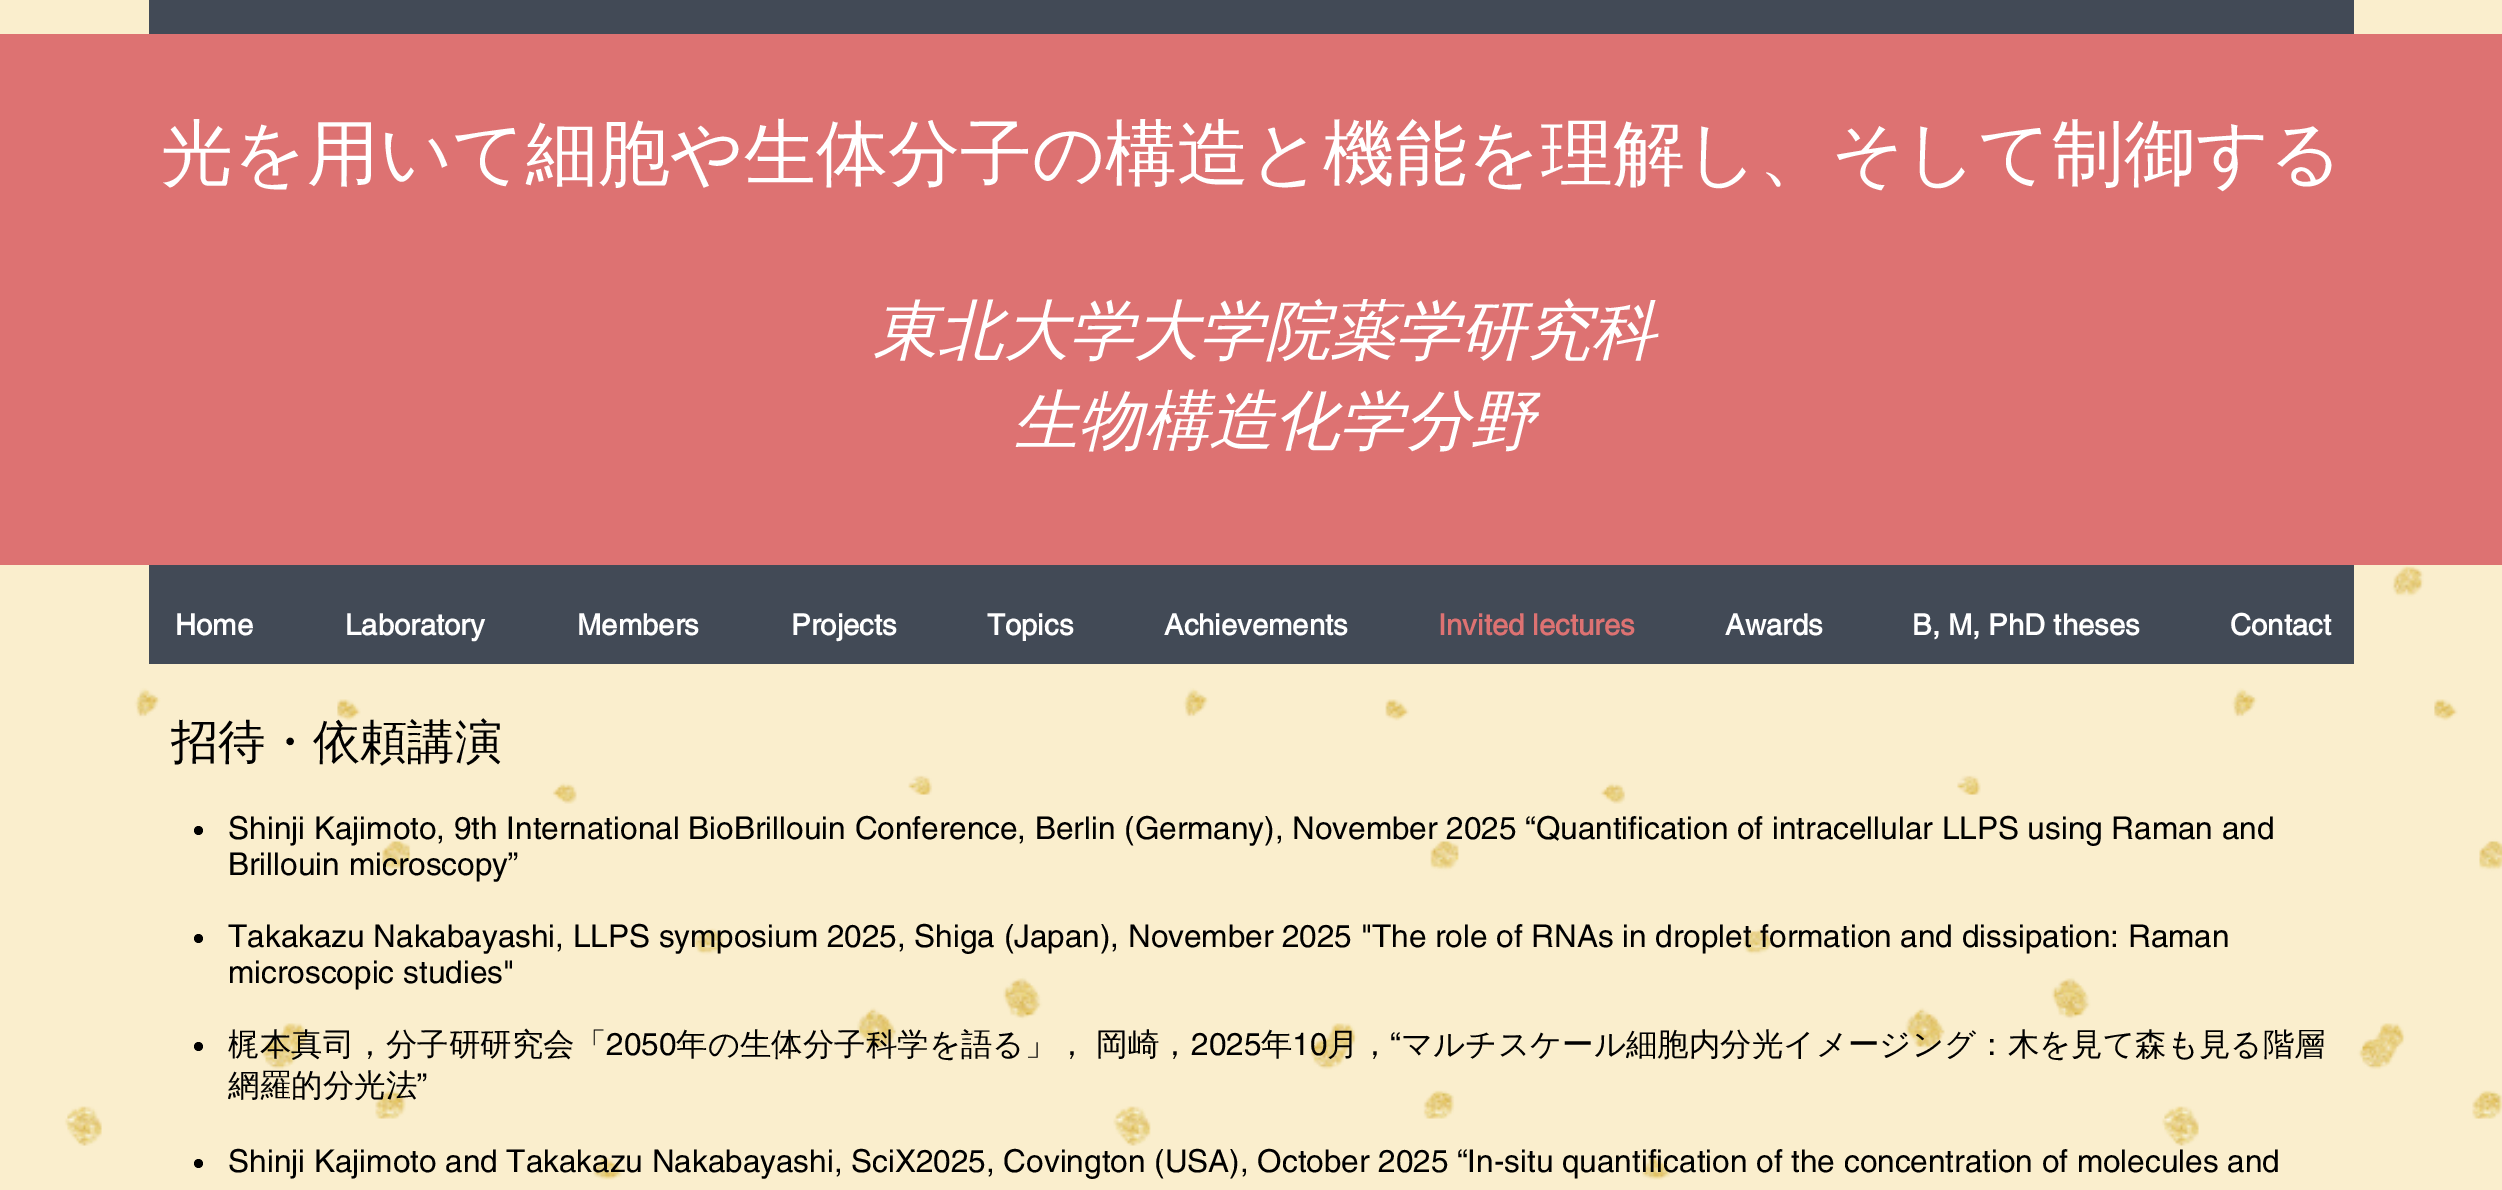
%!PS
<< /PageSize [2502 1190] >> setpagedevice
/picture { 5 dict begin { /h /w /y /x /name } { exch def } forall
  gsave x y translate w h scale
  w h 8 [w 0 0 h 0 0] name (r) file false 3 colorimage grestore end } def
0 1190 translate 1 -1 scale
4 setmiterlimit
0.98 0.933 0.804 setrgbcolor
0 0 2502 1190 rectfill
(img1.rgb) 64 566 2438 614 picture
0.259 0.29 0.337 setrgbcolor
149 0 2205 664 rectfill
0.867 0.447 0.447 setrgbcolor
0 34 2502 531 rectfill
/WenQuanYiZenHei-Medium [72 0 0 -72 0 0] selectfont
1 setgray
161 178 moveto (光を用いて細胞や生体分子の構造と機能を理解し、そして制御する) show
/WenQuanYiZenHei-MediumItalic [65.25 0 0 -65.25 0 0] selectfont
873 353 moveto (東北大学大学院薬学研究科) show
1013 443 moveto (生物構造化学分野) show
/helvetica-Bold [29.25 0 0 -29.25 0 0] selectfont
175 635 moveto (Home) show
345 635 moveto (Laboratory) show
577 635 moveto (Members) show
791 635 moveto (Projects) show
987 635 moveto (Topics) show
1164 635 moveto (Achievements) show
0.867 0.447 0.447 setrgbcolor
1438 635 moveto (Invited lectures) show
1 setgray
1725 635 moveto (Awards) show
1912 635 moveto (B, M, PhD theses) show
2230 635 moveto (Contact) show
/WenQuanYiZenHei-Medium [47.25 0 0 -47.25 0 0] selectfont
0 setgray
171 758 moveto (招待・依頼講演) show
newpath 198.5 830.5 4.5 0 360 arc closepath fill
/helvetica-Regular [31.5 0 0 -31.5 0 0] selectfont
228 839 moveto (Shinji Kajimoto, 9th International BioBrillouin Conference, Berlin \(Germany\), November 2025 “Quantification of intracellular LLPS using Raman and) show
228 875 moveto (Brillouin microscopy”) show
newpath 198.5 938.5 4.5 0 360 arc closepath fill
228 947 moveto (Takakazu Nakabayashi, LLPS symposium 2025, Shiga \(Japan\), November 2025 "The role of RNAs in droplet formation and dissipation: Raman) show
228 983 moveto (microscopic studies") show
newpath 198.5 1046.5 4.5 0 360 arc closepath fill
/WenQuanYiZenHei-Medium [31.5 0 0 -31.5 0 0] selectfont
228 1055 moveto (梶本真司，分子研研究会「) show
/helvetica-Regular [31.5 0 0 -31.5 0 0] selectfont
606 1055 moveto (2050) show
/WenQuanYiZenHei-Medium [31.5 0 0 -31.5 0 0] selectfont
676 1055 moveto -1 0 32 (年の生体分子科学を語る」， 岡崎，) widthshow
/helvetica-Regular [31.5 0 0 -31.5 0 0] selectfont
1191 1055 moveto (2025) show
/WenQuanYiZenHei-Medium [31.5 0 0 -31.5 0 0] selectfont
1261 1055 moveto (年) show
/helvetica-Regular [31.5 0 0 -31.5 0 0] selectfont
1292 1055 moveto (10) show
/WenQuanYiZenHei-Medium [31.5 0 0 -31.5 0 0] selectfont
1327 1055 moveto (月，) show
/helvetica-Regular [31.5 0 0 -31.5 0 0] selectfont
1390 1055 moveto (“) show
/WenQuanYiZenHei-Medium [31.5 0 0 -31.5 0 0] selectfont
1401 1055 moveto (マルチスケール細胞内分光イメージング：木を見て森も見る階層) show
228 1096 moveto (網羅的分光法) show
/helvetica-Regular [31.5 0 0 -31.5 0 0] selectfont
417 1096 moveto (”) show
newpath 198.5 1163.5 4.5 0 360 arc closepath fill
228 1172 moveto (Shinji Kajimoto and Takakazu Nakabayashi, SciX2025, Covington \(USA\), October 2025 “In-situ quantification of the concentration of molecules and) show
showpage
